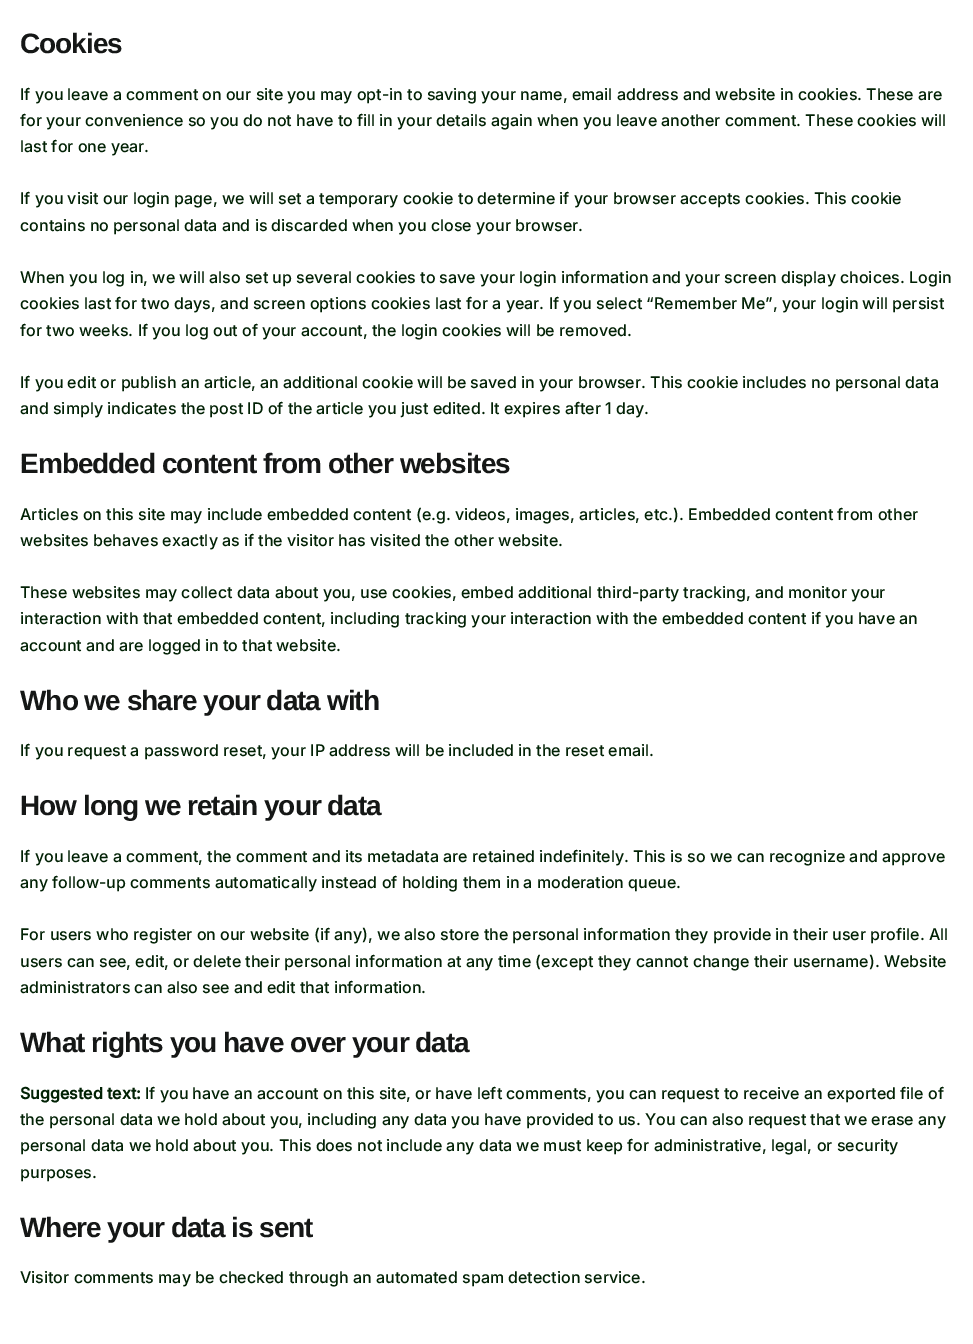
%!PS
<< /PageSize [973 1344] >> setpagedevice
0 1344 translate 1 -1 scale
4 setmiterlimit
1 setgray
0 0 973 1344 rectfill
/LiberationSans-Bold [28 0 0 -28 0 0] selectfont
0.082 0.09 0.086 setrgbcolor
20 53 moveto -1 0 (Cookies) ashow
/Inter-Medium [16 0 0 -16 0 0] selectfont
0.004 0.129 0.016 setrgbcolor
20 100 moveto (If you leave a comment on our site you may opt-in to saving your name, email address and website in cookies. These are) show
20 126 moveto (for your convenience so you do not have to fill in your details again when you leave another comment. These cookies will) show
20 152 moveto (last for one year.) show
20 204 moveto (If you visit our login page, we will set a temporary cookie to determine if your browser accepts cookies. This cookie) show
20 231 moveto (contains no personal data and is discarded when you close your browser.) show
20 283 moveto (When you log in, we will also set up several cookies to save your login information and your screen display choices. Login) show
20 309 moveto (cookies last for two days, and screen options cookies last for a year. If you select “Remember Me”, your login will persist) show
20 336 moveto (for two weeks. If you log out of your account, the login cookies will be removed.) show
20 388 moveto (If you edit or publish an article, an additional cookie will be saved in your browser. This cookie includes no personal data) show
20 414 moveto (and simply indicates the post ID of the article you just edited. It expires after 1 day.) show
/LiberationSans-Bold [28 0 0 -28 0 0] selectfont
0.082 0.09 0.086 setrgbcolor
20 473 moveto -1 0 (Embedded content from other websites) ashow
/Inter-Medium [16 0 0 -16 0 0] selectfont
0.004 0.129 0.016 setrgbcolor
20 520 moveto (Articles on this site may include embedded content \(e.g. videos, images, articles, etc.\). Embedded content from other) show
20 546 moveto (websites behaves exactly as if the visitor has visited the other website.) show
20 598 moveto (These websites may collect data about you, use cookies, embed additional third-party tracking, and monitor your) show
20 624 moveto (interaction with that embedded content, including tracking your interaction with the embedded content if you have an) show
20 651 moveto (account and are logged in to that website.) show
/LiberationSans-Bold [28 0 0 -28 0 0] selectfont
0.082 0.09 0.086 setrgbcolor
20 710 moveto -1 0 (Who we share your data with) ashow
/Inter-Medium [16 0 0 -16 0 0] selectfont
0.004 0.129 0.016 setrgbcolor
20 756 moveto (If you request a password reset, your IP address will be included in the reset email.) show
/LiberationSans-Bold [28 0 0 -28 0 0] selectfont
0.082 0.09 0.086 setrgbcolor
20 815 moveto -1 0 (How long we retain your data) ashow
/Inter-Medium [16 0 0 -16 0 0] selectfont
0.004 0.129 0.016 setrgbcolor
20 862 moveto (If you leave a comment, the comment and its metadata are retained indefinitely. This is so we can recognize and approve) show
20 888 moveto (any follow-up comments automatically instead of holding them in a moderation queue.) show
20 940 moveto (For users who register on our website \(if any\), we also store the personal information they provide in their user profile. All) show
20 967 moveto (users can see, edit, or delete their personal information at any time \(except they cannot change their username\). Website) show
20 993 moveto (administrators can also see and edit that information.) show
/LiberationSans-Bold [28 0 0 -28 0 0] selectfont
0.082 0.09 0.086 setrgbcolor
20 1052 moveto -1 0 (What rights you have over your data) ashow
/Inter-Bold [16 0 0 -16 0 0] selectfont
0.004 0.129 0.016 setrgbcolor
20 1099 moveto (Suggested text:) show
/Inter-Medium [16 0 0 -16 0 0] selectfont
145 1099 moveto (If you have an account on this site, or have left comments, you can request to receive an exported file of) show
20 1125 moveto (the personal data we hold about you, including any data you have provided to us. You can also request that we erase any) show
20 1151 moveto (personal data we hold about you. This does not include any data we must keep for administrative, legal, or security) show
20 1178 moveto (purposes.) show
/LiberationSans-Bold [28 0 0 -28 0 0] selectfont
0.082 0.09 0.086 setrgbcolor
20 1237 moveto -1 0 (Where your data is sent) ashow
/Inter-Medium [16 0 0 -16 0 0] selectfont
0.004 0.129 0.016 setrgbcolor
20 1283 moveto (Visitor comments may be checked through an automated spam detection service.) show
showpage
